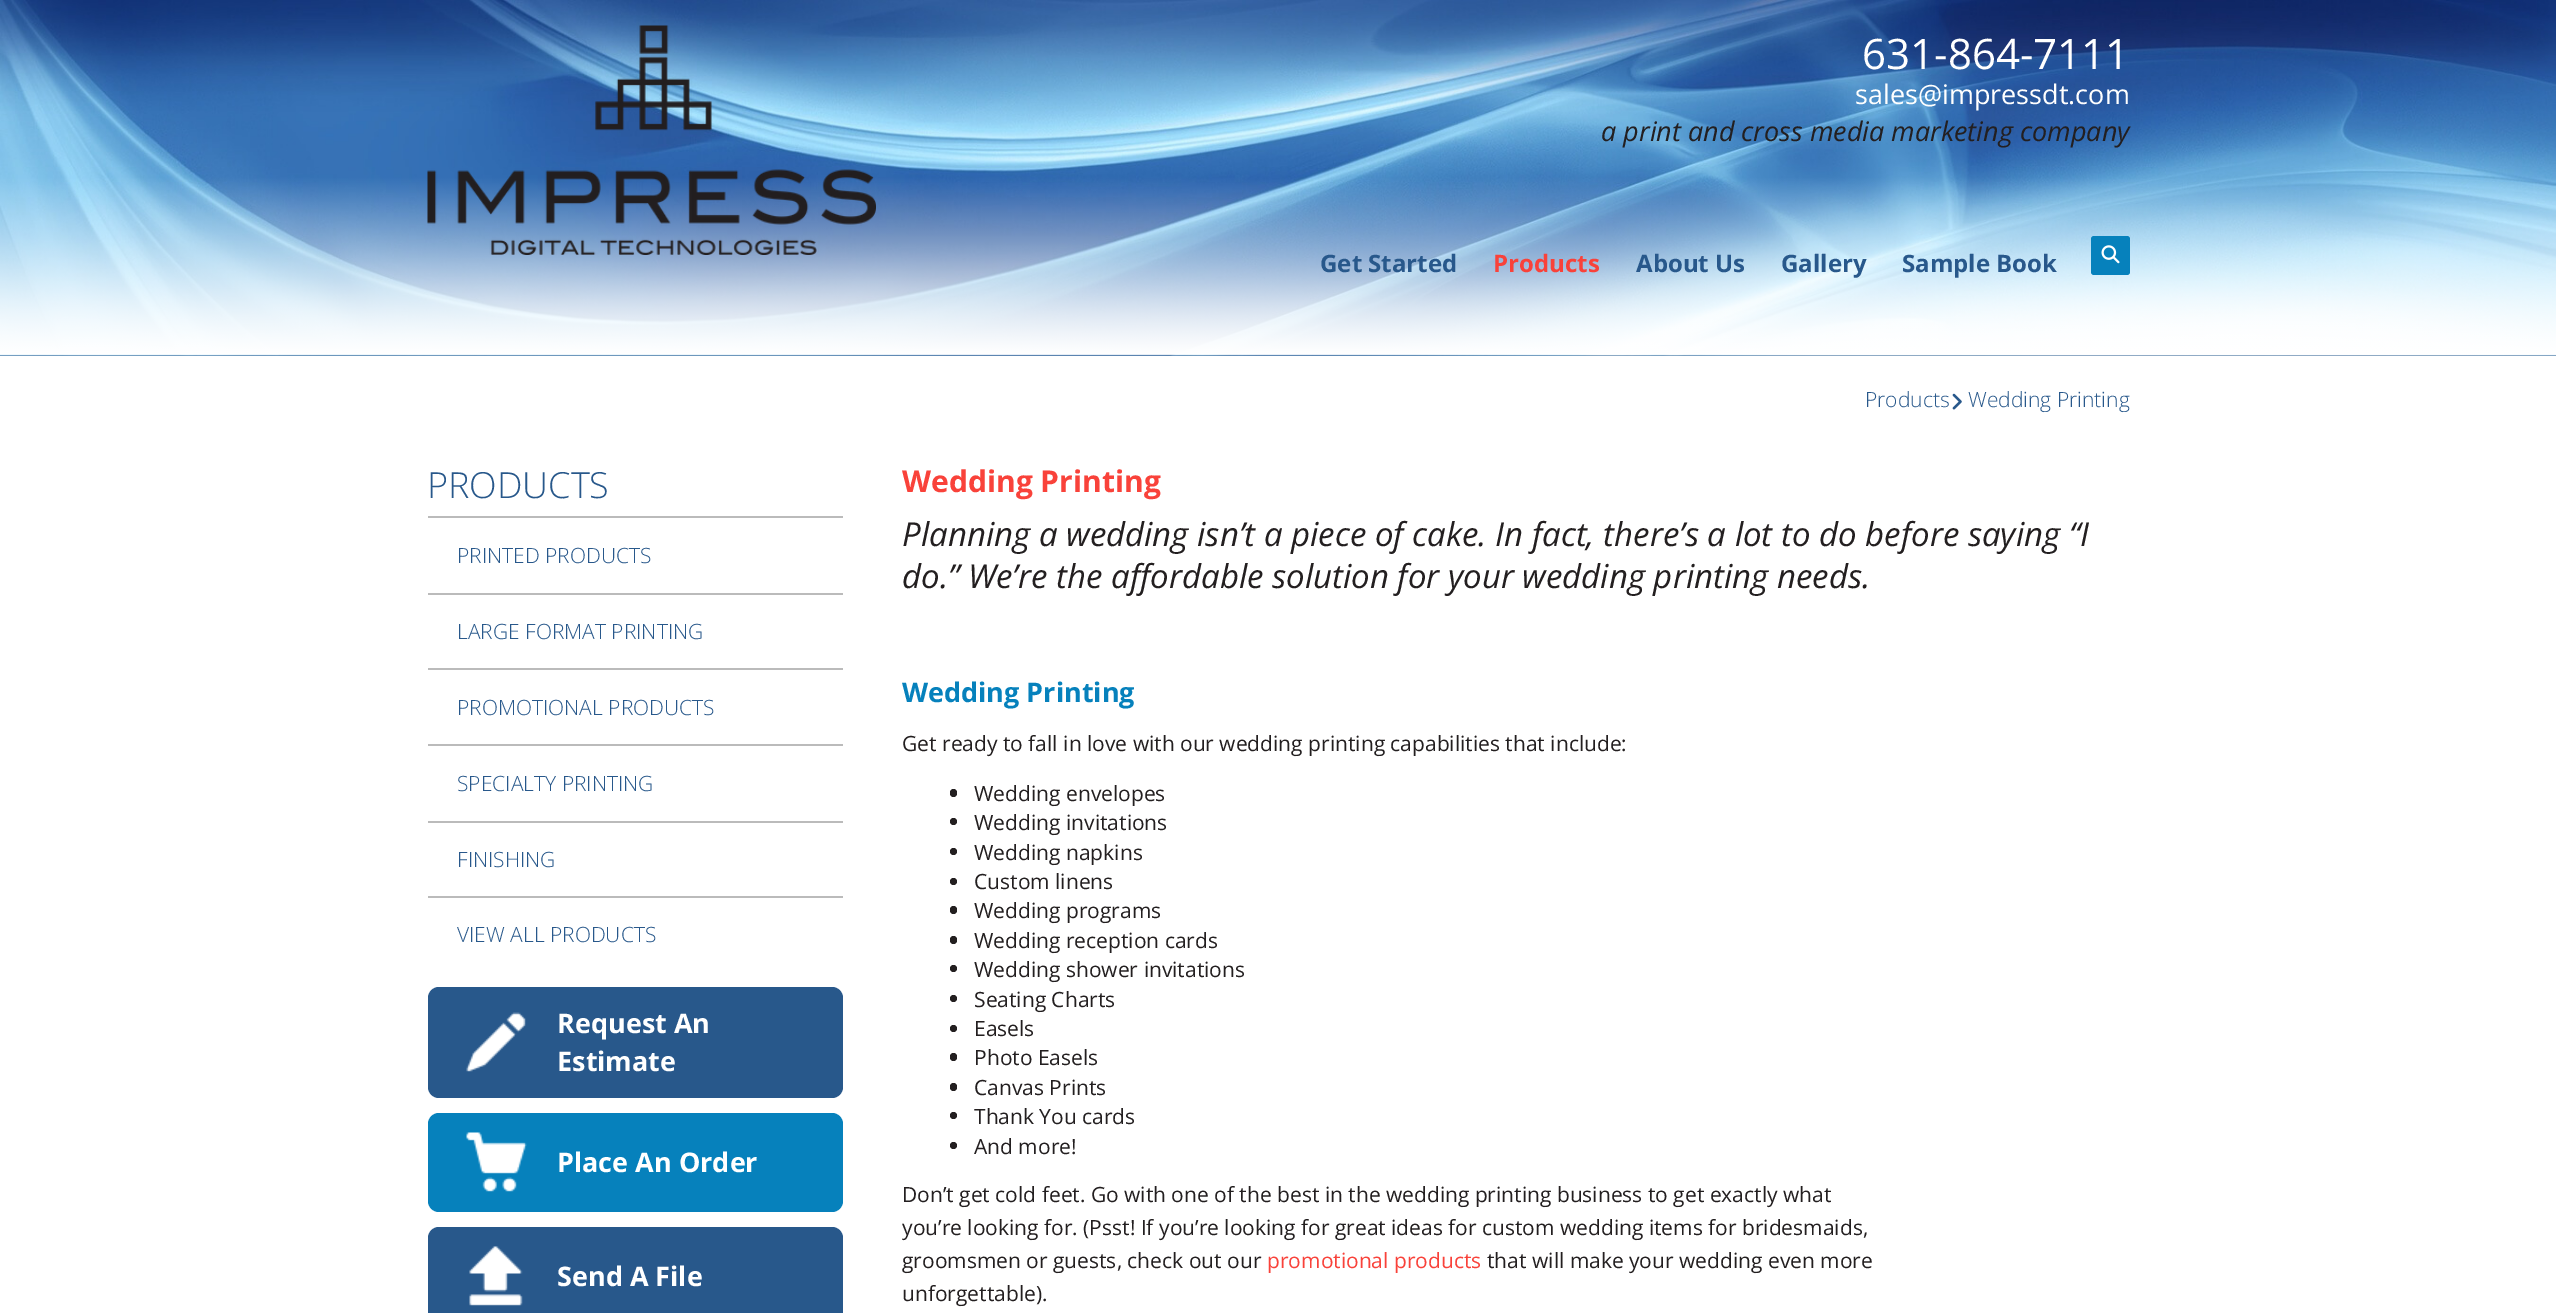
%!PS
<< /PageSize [2556 1313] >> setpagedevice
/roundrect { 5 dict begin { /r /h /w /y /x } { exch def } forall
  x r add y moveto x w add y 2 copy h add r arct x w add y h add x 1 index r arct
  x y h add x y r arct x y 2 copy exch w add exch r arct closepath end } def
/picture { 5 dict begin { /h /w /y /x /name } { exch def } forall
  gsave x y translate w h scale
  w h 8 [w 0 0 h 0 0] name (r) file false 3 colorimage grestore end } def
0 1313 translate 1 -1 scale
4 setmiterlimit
0.157 0.345 0.545 setrgbcolor
0 0 2556 1313 rectfill
(img1.rgb) 0 0 2556 356 picture
(img2.rgb) 427 25 449 230 picture
/OpenSans-Regular [42 0 0 -42 0 0] selectfont
1 setgray
1862 69 moveto (631-864-7111) show
/OpenSans-Regular [27 0 0 -27 0 0] selectfont
1855 104 moveto (sales@impressdt.com) show
/OpenSans-Italic [27 0 0 -27 0 0] selectfont
0.137 0.122 0.125 setrgbcolor
1601 141 moveto (a print and cross media marketing company) show
/OpenSans-Bold [24 0 0 -24 0 0] selectfont
0.157 0.345 0.545 setrgbcolor
1320 272 moveto (Get Started) show
0.976 0.259 0.227 setrgbcolor
1493 272 moveto (Products) show
0.157 0.345 0.545 setrgbcolor
1636 272 moveto (About Us) show
1781 272 moveto (Gallery) show
1902 272 moveto (Sample Book) show
0.024 0.506 0.737 setrgbcolor
2091 236 39 39 3 roundrect fill
(img3.rgb) 2101 245 19 19 picture
1 setgray
0 356 2556 957 rectfill
/OpenSans-Light [21 0 0 -21 0 0] selectfont
0.157 0.345 0.545 setrgbcolor
1865 407 moveto (Products) show
(img4.rgb) 1952 393 10 17 picture
1968 407 moveto (Wedding Printing) show
0.733 setgray
428 516 415 2 rectfill
/OpenSans-Light [36 0 0 -36 0 0] selectfont
0.157 0.345 0.545 setrgbcolor
427 498 moveto (PRODUCTS) show
0.733 setgray
428 593 415 2 rectfill
/OpenSans-Light [21 0 0 -21 0 0] selectfont
0.157 0.345 0.545 setrgbcolor
457 563 moveto (PRINTED PRODUCTS) show
0.733 setgray
428 668 415 2 rectfill
0.157 0.345 0.545 setrgbcolor
457 639 moveto (LARGE FORMAT PRINTING) show
0.733 setgray
428 744 415 2 rectfill
0.157 0.345 0.545 setrgbcolor
457 715 moveto (PROMOTIONAL PRODUCTS) show
0.733 setgray
428 821 415 2 rectfill
0.157 0.345 0.545 setrgbcolor
457 791 moveto (SPECIALTY PRINTING) show
0.733 setgray
428 896 415 2 rectfill
0.157 0.345 0.545 setrgbcolor
457 867 moveto (FINISHING) show
457 942 moveto (VIEW ALL PRODUCTS) show
428 987 415 111 11 roundrect fill
(img5.rgb) 466 1012 60 60 picture
/OpenSans-Bold [27 0 0 -27 0 0] selectfont
1 setgray
557 1033 moveto (Request An) show
557 1071 moveto (Estimate) show
0.024 0.506 0.737 setrgbcolor
428 1113 415 99 11 roundrect fill
(img6.rgb) 466 1132 61 60 picture
1 setgray
557 1172 moveto (Place An Order) show
0.157 0.345 0.545 setrgbcolor
428 1227 415 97 11 roundrect fill
(img7.rgb) 469 1246 54 60 picture
1 setgray
557 1286 moveto (Send A File) show
/OpenSans-Bold [30 0 0 -30 0 0] selectfont
0.976 0.259 0.227 setrgbcolor
902 492 moveto (Wedding Printing) show
/OpenSans-Italic [33 0 0 -33 0 0] selectfont
0.137 0.122 0.125 setrgbcolor
902 546 moveto (Planning a wedding isn’t a piece of cake. In fact, there’s a lot to do before saying “I) show
902 588 moveto (do.” We’re the affordable solution for your wedding printing needs.) show
/OpenSans-Bold [27 0 0 -27 0 0] selectfont
0.024 0.506 0.737 setrgbcolor
902 702 moveto (Wedding Printing) show
/OpenSans-Regular [21 0 0 -21 0 0] selectfont
0.137 0.122 0.125 setrgbcolor
902 751 moveto (Get ready to fall in love with our wedding printing capabilities that include:) show
950 789 7 8 3.5 roundrect fill
974 801 moveto (Wedding envelopes) show
newpath 953.5 821.5 3.5 0 360 arc closepath fill
974 830 moveto (Wedding invitations) show
newpath 953.5 851.5 3.5 0 360 arc closepath fill
974 860 moveto (Wedding napkins) show
newpath 953.5 881.5 3.5 0 360 arc closepath fill
974 889 moveto (Custom linens) show
950 906 7 8 3.5 roundrect fill
974 918 moveto (Wedding programs) show
950 936 7 8 3.5 roundrect fill
974 948 moveto (Wedding reception cards) show
newpath 953.5 968.5 3.5 0 360 arc closepath fill
974 977 moveto (Wedding shower invitations) show
newpath 953.5 998.5 3.5 0 360 arc closepath fill
974 1007 moveto (Seating Charts) show
newpath 953.5 1028.5 3.5 0 360 arc closepath fill
974 1036 moveto (Easels) show
950 1053 7 8 3.5 roundrect fill
974 1065 moveto (Photo Easels) show
950 1083 7 8 3.5 roundrect fill
974 1095 moveto (Canvas Prints) show
newpath 953.5 1115.5 3.5 0 360 arc closepath fill
974 1124 moveto (Thank You cards) show
newpath 953.5 1145.5 3.5 0 360 arc closepath fill
974 1154 moveto (And more!) show
902 1202 moveto (Don’t get cold feet. Go with one of the best in the wedding printing business to get exactly what) show
902 1235 moveto (you’re looking for. \(Psst! If you’re looking for great ideas for custom wedding items for bridesmaids,) show
902 1268 moveto (groomsmen or guests, check out our) show
0.976 0.259 0.227 setrgbcolor
1267 1268 moveto (promotional products) show
0.137 0.122 0.125 setrgbcolor
1487 1268 moveto (that will make your wedding even more) show
902 1301 moveto (unforgettable\).) show
showpage
